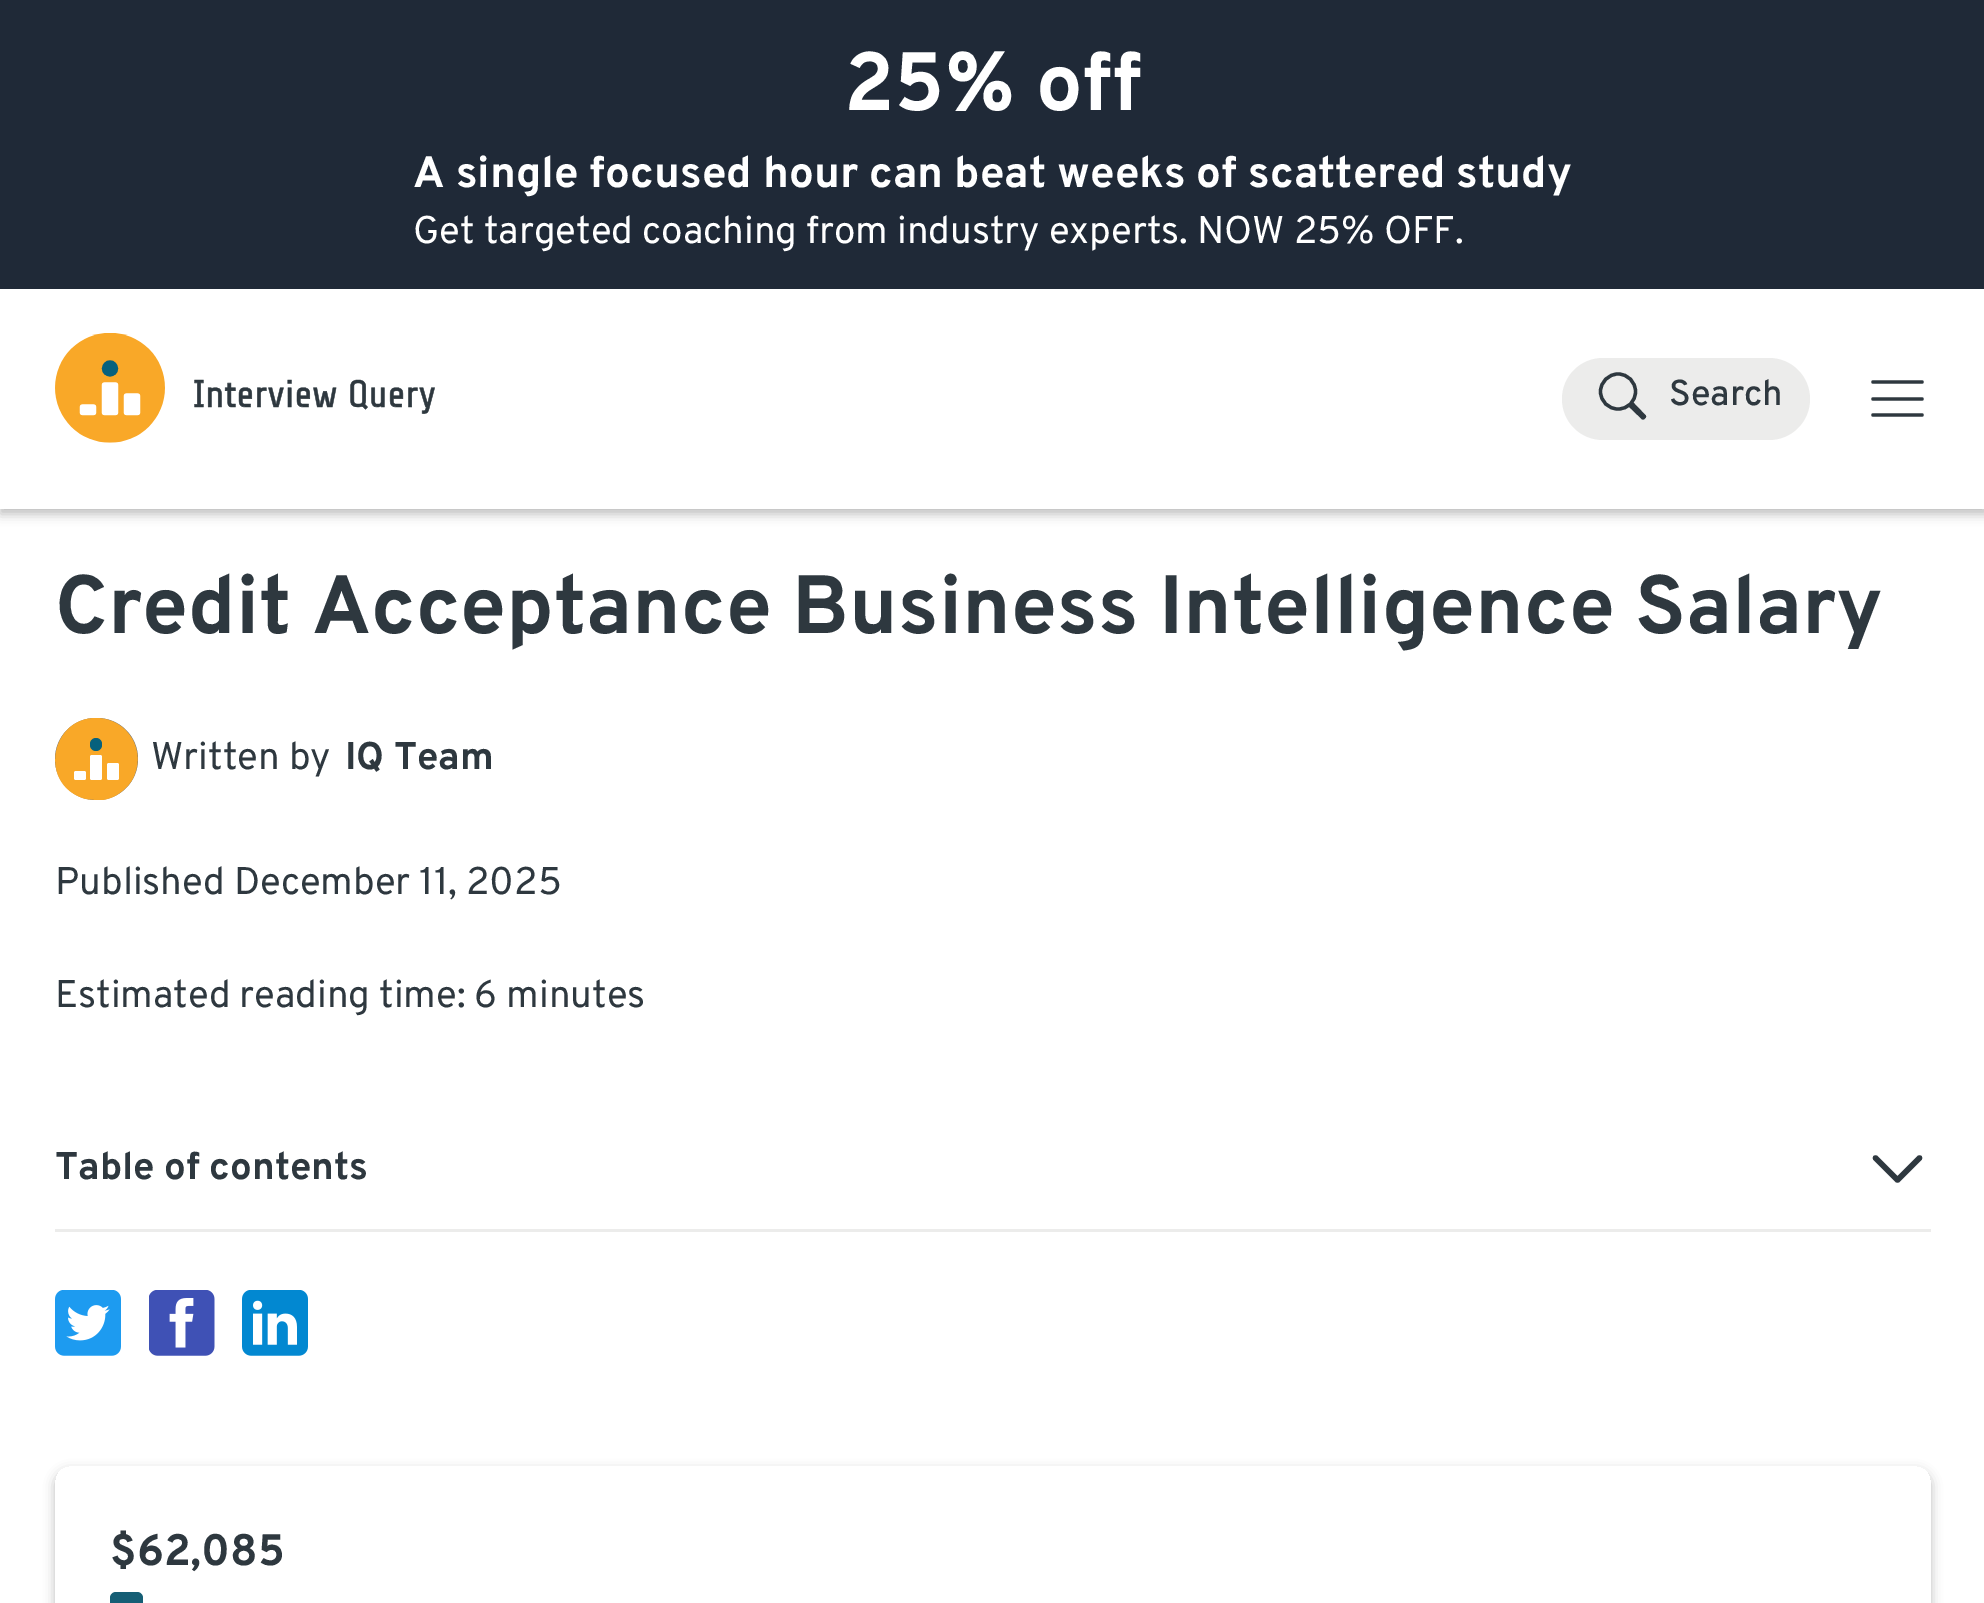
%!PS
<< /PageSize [1984 1603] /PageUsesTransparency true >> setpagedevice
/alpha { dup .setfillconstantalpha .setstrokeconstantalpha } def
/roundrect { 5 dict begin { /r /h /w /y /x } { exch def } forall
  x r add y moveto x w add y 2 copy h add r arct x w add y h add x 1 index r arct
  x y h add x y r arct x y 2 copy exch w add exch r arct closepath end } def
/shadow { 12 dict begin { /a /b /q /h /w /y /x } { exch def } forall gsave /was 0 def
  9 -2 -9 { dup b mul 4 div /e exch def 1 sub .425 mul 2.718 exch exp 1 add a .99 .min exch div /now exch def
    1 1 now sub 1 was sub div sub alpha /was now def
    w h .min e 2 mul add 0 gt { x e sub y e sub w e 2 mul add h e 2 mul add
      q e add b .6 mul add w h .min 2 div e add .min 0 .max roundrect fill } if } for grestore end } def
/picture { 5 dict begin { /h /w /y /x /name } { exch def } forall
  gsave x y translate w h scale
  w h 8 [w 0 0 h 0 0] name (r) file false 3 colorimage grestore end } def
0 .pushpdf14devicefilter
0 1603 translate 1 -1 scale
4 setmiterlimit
1 setgray
0 0 1984 1603 rectfill
0 setgray
0 6 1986 508 0 5.5 0.25 shadow
1 setgray
0 289 1984 220 rectfill
0.122 0.161 0.216 setrgbcolor
0 0 1984 289 rectfill
/Overpass-Bold [82.5 0 0 -82.5 0 0] selectfont
1 setgray
844 110 moveto (25% off) show
/Overpass-Bold [44 0 0 -44 0 0] selectfont
413 187 moveto (A single focused hour can beat weeks of scattered study) show
/Overpass-Regular [38.5 0 0 -38.5 0 0] selectfont
413 243 moveto (Get targeted coaching from industry experts. NOW 25% OFF.) show
(img1.rgb) 55 333 380 110 picture
0.925 0.925 0.922 setrgbcolor
1562 358 248 82 41 roundrect fill
0.18 0.22 0.247 setrgbcolor
3.3 setlinewidth
1 setlinecap
1 setlinejoin
newpath 1631.5 403 moveto 1629.5 405 lineto 1643 418 lineto 1644.5 416.5 lineto closepath 1618 409 moveto 1628 409 1635.5 401.5 1635.5 391.5 curveto 1635.5 382 1628 374 1618 374 curveto 1608.5 374 1600.5 382 1600.5 391.5 curveto 1600.5 401.5 1608.5 409 1618 409 curveto closepath stroke
/Overpass-Medium [36 0 0 -36 0 0] selectfont
1669 405 moveto (Search) show
newpath 1873 415 moveto 1922 415 lineto 1873 399 moveto 1922 399 lineto 1873 382 moveto 1922 382 lineto stroke
/Overpass-Bold [82.5 0 0 -82.5 0 0] selectfont
55 633 moveto (Credit Acceptance Business Intelligence Salary) show
0.447 0.459 0.475 setrgbcolor
55 718 83 82 41 roundrect fill
gsave
55 718 83 82 rectclip
0.976 0.659 0.157 setrgbcolor
newpath 96 718 moveto 128 718 148 752 132 780 curveto 128 787 122 792 115 796 curveto 109 799 102 801 96 800 curveto 89 799 87 800 80 797 curveto 39 780 52 718 96 718 curveto closepath fill
grestore
1 setgray
90 755 12 25 2 roundrect fill
74 771 12 9 2 roundrect fill
107 763 12 17 2 roundrect fill
0.027 0.38 0.49 setrgbcolor
90 738 12 13 6 roundrect fill
/Overpass-Regular [38.5 0 0 -38.5 0 0] selectfont
0.18 0.22 0.247 setrgbcolor
151 769 moveto (Written by) show
/Overpass-Bold [38.5 0 0 -38.5 0 0] selectfont
345 769 moveto (IQ Team) show
/Overpass-Regular [38.5 0 0 -38.5 0 0] selectfont
55 894 moveto (Published December 11, 2025) show
55 1007 moveto (Estimated reading time: 6 minutes) show
0.925 0.925 0.922 setrgbcolor
55 1229 1876 3 rectfill
/Overpass-Bold [38.5 0 0 -38.5 0 0] selectfont
0.18 0.22 0.247 setrgbcolor
55 1179 moveto (Table of contents) show
5.5 setlinewidth
newpath 1875.5 1158 moveto 1897.5 1180 lineto 1919.5 1158 lineto stroke
(img2.rgb) 55 1290 66 66 picture
(img3.rgb) 149 1290 66 66 picture
(img4.rgb) 242 1290 66 66 picture
gsave
newpath 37 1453 moveto 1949 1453 lineto 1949 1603 lineto 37 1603 lineto closepath 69 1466 moveto 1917 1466 lineto 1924.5 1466 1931 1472.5 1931 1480 curveto 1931 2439 lineto 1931 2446.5 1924.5 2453 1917 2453 curveto 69 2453 lineto 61.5 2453 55 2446.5 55 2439 curveto 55 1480 lineto 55 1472.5 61.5 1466 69 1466 curveto closepath eoclip newpath
0 setgray
55 1471 1876 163 14 5.5 0.25 shadow
grestore
/Overpass-Bold [44 0 0 -44 0 0] selectfont
110 1565 moveto ($62,085) show
0.082 0.369 0.459 setrgbcolor
110 1592 33 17 6 roundrect fill
.poppdf14devicefilter showpage
